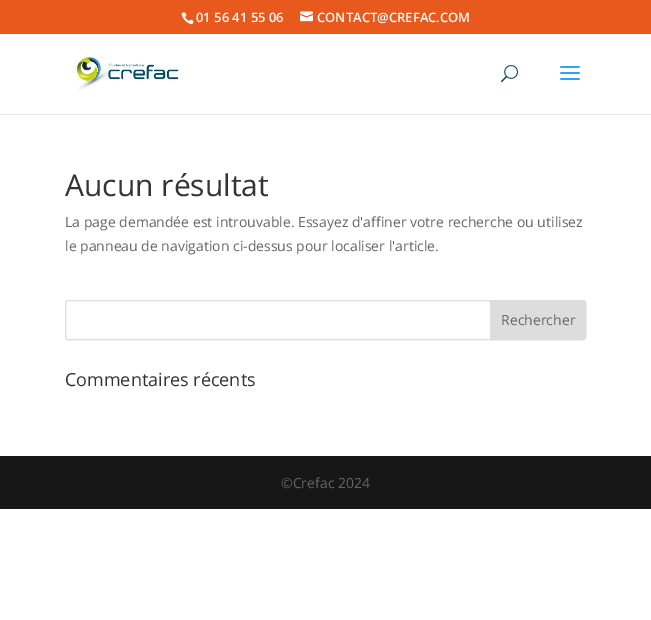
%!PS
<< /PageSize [651 620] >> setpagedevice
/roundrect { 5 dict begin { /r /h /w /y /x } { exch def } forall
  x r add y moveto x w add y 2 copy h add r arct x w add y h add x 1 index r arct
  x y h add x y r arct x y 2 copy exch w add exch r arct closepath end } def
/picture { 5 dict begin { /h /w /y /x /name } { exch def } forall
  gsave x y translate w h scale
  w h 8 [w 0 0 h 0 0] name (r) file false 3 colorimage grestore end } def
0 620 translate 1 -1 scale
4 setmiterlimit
1 setgray
0 0 651 620 rectfill
0.906 0.349 0.11 setrgbcolor
0 0 651 34 rectfill
(img1.rgb) 181 12 13 13 picture
/OpenSans-SemiBold [13 0 0 -13 0 0] selectfont
1 setgray
196 22 moveto (01 56 41 55 06) show
(img2.rgb) 300 11 13 11 picture
317 22 moveto (CONTACT@CREFAC.COM) show
0.902 setgray
0 114 651 1 rectfill
(img3.rgb) 77 57 102 33 picture
(img4.rgb) 501 65 17 18 picture
(img5.rgb) 560 66 20 14 picture
/OpenSans-Regular [30 0 0 -30 0 0] selectfont
0.2 setgray
65 196 moveto (Aucun résultat) show
/OpenSans-Regular [14 0 0 -14 0 0] selectfont
0.4 setgray
65 227 moveto (La page demandée est introuvable. Essayez d'affiner votre recherche ou utilisez) show
65 251 moveto (le panneau de navigation ci-dessus pour localiser l'article.) show
0.867 setgray
65.5 300.5 520 39 2.5 roundrect stroke
newpath 490.5 300.5 moveto 583 300.5 lineto 584.5 300.5 585.5 301.5 585.5 303 curveto 585.5 337 lineto 585.5 338.5 584.5 339.5 583 339.5 curveto 490.5 339.5 lineto closepath gsave fill grestore
stroke
0.4 setgray
501 325 moveto (Rechercher) show
/OpenSans-Regular [18 0 0 -18 0 0] selectfont
0.2 setgray
65 386 moveto (Commentaires récents) show
0.09 setgray
0 456 651 53 rectfill
/OpenSans-Regular [14 0 0 -14 0 0] selectfont
0.4 setgray
281 488 moveto (©Crefac 2024) show
showpage
